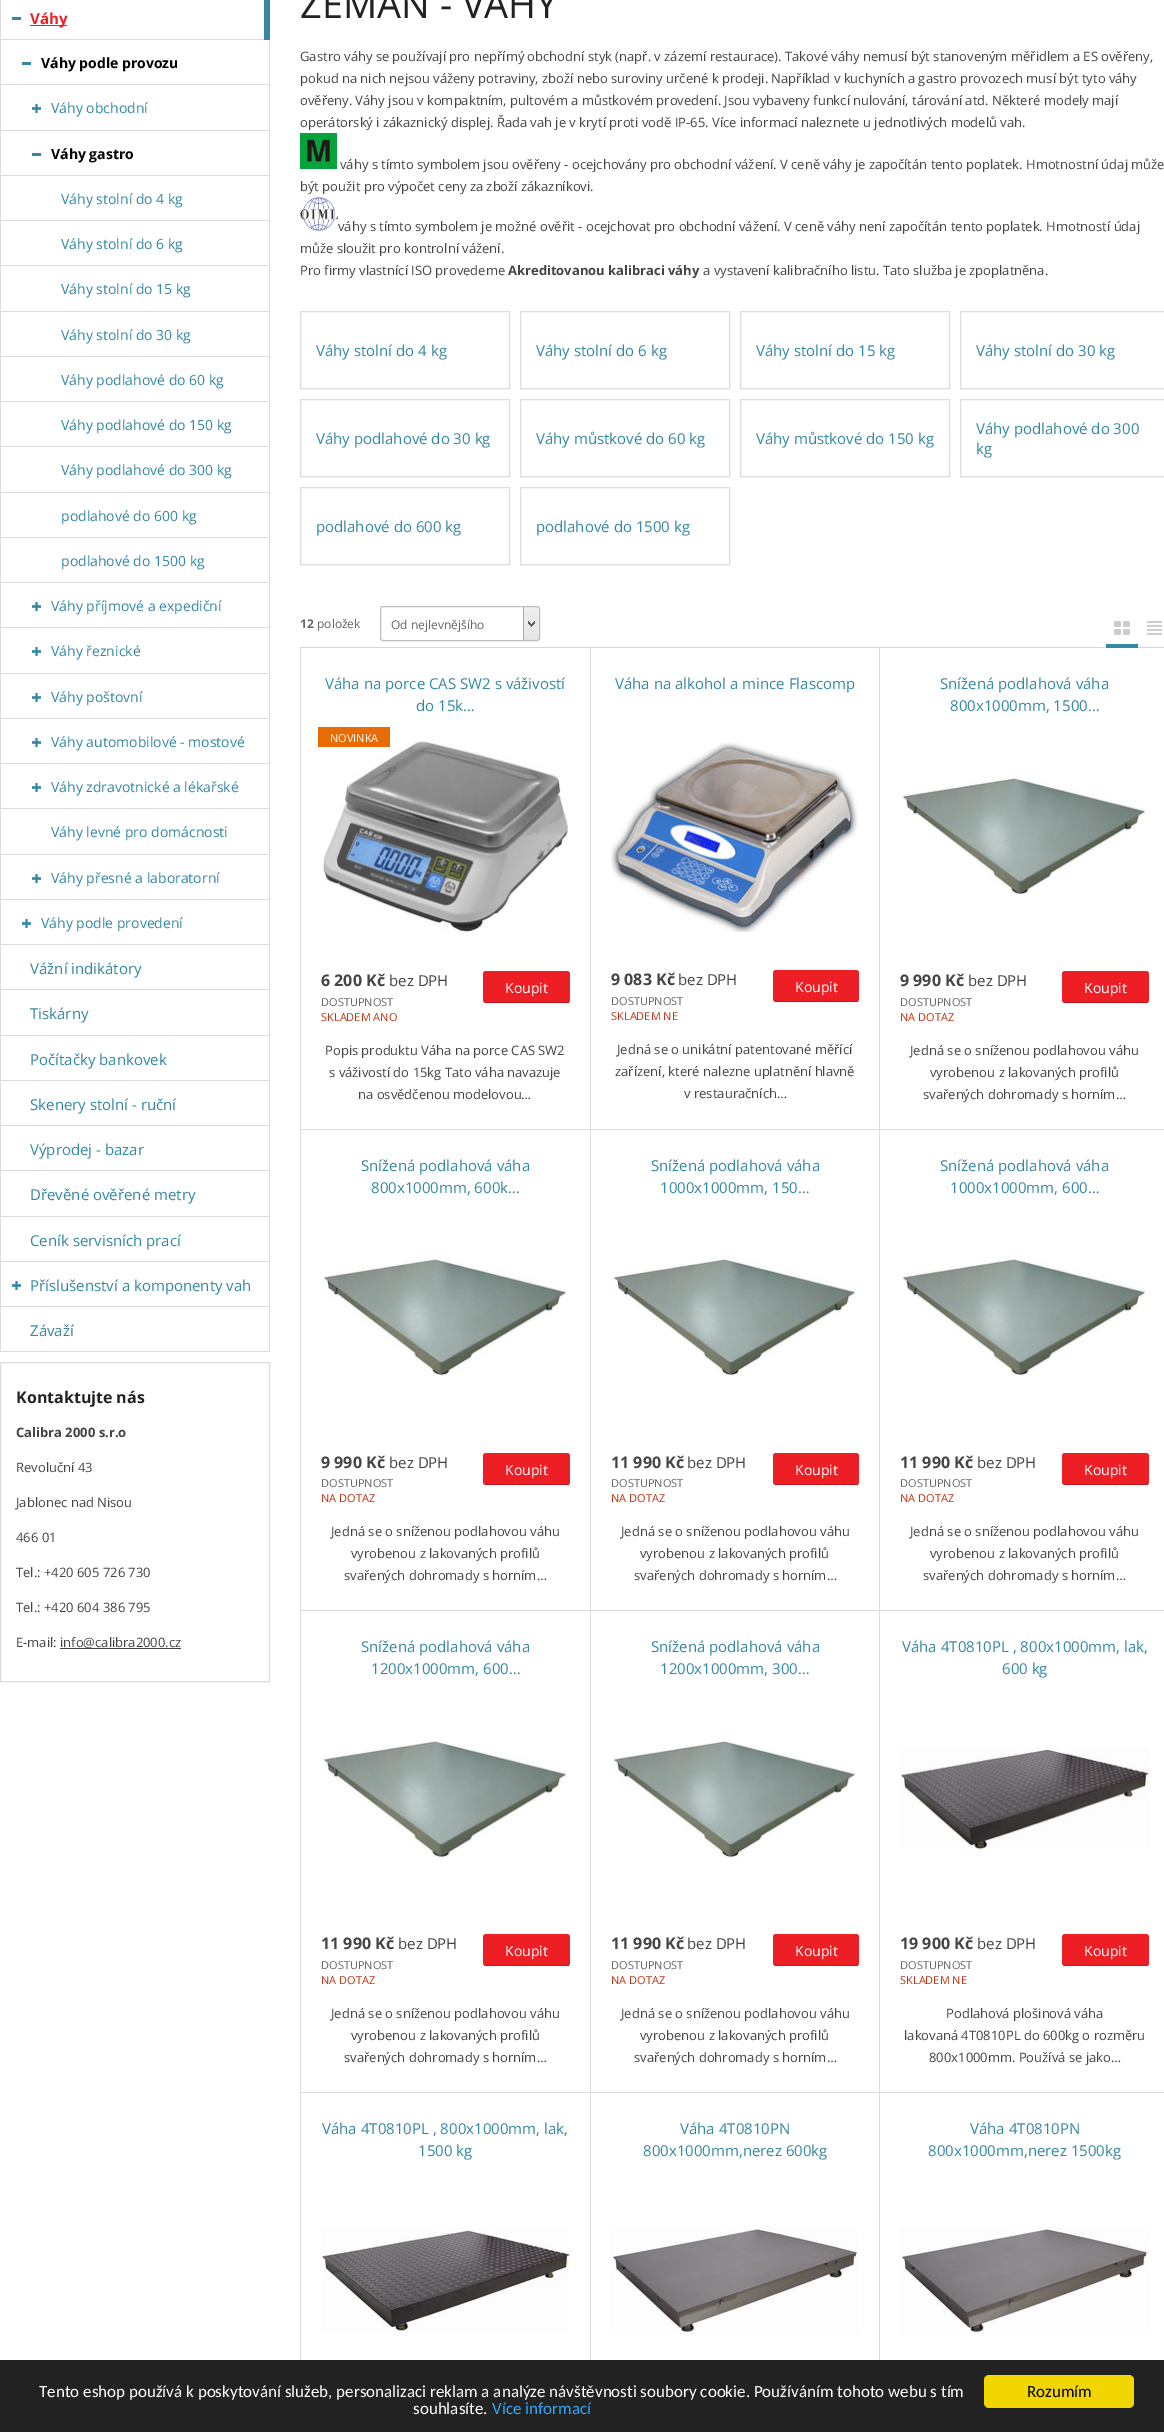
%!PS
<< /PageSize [1164 2432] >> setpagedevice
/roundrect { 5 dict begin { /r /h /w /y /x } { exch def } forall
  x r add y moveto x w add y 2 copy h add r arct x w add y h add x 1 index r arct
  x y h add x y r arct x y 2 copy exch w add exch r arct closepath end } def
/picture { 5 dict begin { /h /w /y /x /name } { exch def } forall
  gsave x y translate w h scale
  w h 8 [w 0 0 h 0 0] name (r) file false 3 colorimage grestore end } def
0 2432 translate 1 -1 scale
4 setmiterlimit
1 setgray
0 0 1164 2432 rectfill
0.208 0.533 0.639 setrgbcolor
12 17 9 3 rectfill
0.863 setgray
0 39 270 1 rectfill
0 0 1 40 rectfill
0.933 0.118 0.145 setrgbcolor
30 25 37 1 rectfill
/OpenSans-Bold [15 0 0 -15 0 0] selectfont
30 24 moveto (Váhy) show
0.208 0.533 0.639 setrgbcolor
264 0 6 40 rectfill
22 62 9 3 rectfill
0.863 setgray
269 40 1 1312 rectfill
0 84 270 1 rectfill
0 40 1 45 rectfill
/OpenSans-Bold [14 0 0 -14 0 0] selectfont
0 setgray
41 68 moveto (Váhy podle provozu) show
(img1.rgb) 32 104 9 9 picture
0.863 setgray
0 130 270 1 rectfill
0 85 1 46 rectfill
/OpenSans-Regular [14 0 0 -14 0 0] selectfont
0.208 0.533 0.639 setrgbcolor
51 113 moveto (Váhy obchodní) show
32 153 9 3 rectfill
0.863 setgray
0 175 270 1 rectfill
0 131 1 45 rectfill
/OpenSans-Bold [14 0 0 -14 0 0] selectfont
0 setgray
51 159 moveto (Váhy gastro) show
0.863 setgray
0 220 270 1 rectfill
0 176 1 45 rectfill
/OpenSans-Regular [14 0 0 -14 0 0] selectfont
0.208 0.533 0.639 setrgbcolor
61 204 moveto (Váhy stolní do 4 kg) show
0.863 setgray
0 265 270 1 rectfill
0 221 1 45 rectfill
0.208 0.533 0.639 setrgbcolor
61 249 moveto (Váhy stolní do 6 kg) show
0.863 setgray
0 311 270 1 rectfill
0 266 1 46 rectfill
0.208 0.533 0.639 setrgbcolor
61 294 moveto (Váhy stolní do 15 kg) show
0.863 setgray
0 356 270 1 rectfill
0 312 1 45 rectfill
0.208 0.533 0.639 setrgbcolor
61 340 moveto (Váhy stolní do 30 kg) show
0.863 setgray
0 401 270 1 rectfill
0 357 1 45 rectfill
0.208 0.533 0.639 setrgbcolor
61 385 moveto (Váhy podlahové do 60 kg) show
0.863 setgray
0 446 270 1 rectfill
0 402 1 45 rectfill
0.208 0.533 0.639 setrgbcolor
61 430 moveto (Váhy podlahové do 150 kg) show
0.863 setgray
0 492 270 1 rectfill
0 447 1 46 rectfill
0.208 0.533 0.639 setrgbcolor
61 475 moveto (Váhy podlahové do 300 kg) show
0.863 setgray
0 537 270 1 rectfill
0 493 1 45 rectfill
0.208 0.533 0.639 setrgbcolor
61 521 moveto (podlahové do 600 kg) show
0.863 setgray
0 582 270 1 rectfill
0 538 1 45 rectfill
0.208 0.533 0.639 setrgbcolor
61 566 moveto (podlahové do 1500 kg) show
(img1.rgb) 32 602 9 9 picture
0.863 setgray
0 627 270 1 rectfill
0 583 1 45 rectfill
0.208 0.533 0.639 setrgbcolor
51 611 moveto (Váhy příjmové a expediční) show
(img1.rgb) 32 647 9 9 picture
0.863 setgray
0 673 270 1 rectfill
0 628 1 46 rectfill
0.208 0.533 0.639 setrgbcolor
51 656 moveto (Váhy řeznické) show
(img1.rgb) 32 693 9 9 picture
0.863 setgray
0 718 270 1 rectfill
0 674 1 45 rectfill
0.208 0.533 0.639 setrgbcolor
51 702 moveto (Váhy poštovní) show
(img1.rgb) 32 738 9 9 picture
0.863 setgray
0 763 270 1 rectfill
0 719 1 45 rectfill
0.208 0.533 0.639 setrgbcolor
51 747 moveto (Váhy automobilové - mostové) show
(img1.rgb) 32 783 9 9 picture
0.863 setgray
0 808 270 1 rectfill
0 764 1 45 rectfill
0.208 0.533 0.639 setrgbcolor
51 792 moveto (Váhy zdravotnické a lékařské) show
0.863 setgray
0 854 270 1 rectfill
0 809 1 46 rectfill
0.208 0.533 0.639 setrgbcolor
51 837 moveto (Váhy levné pro domácnosti) show
(img1.rgb) 32 874 9 9 picture
0.863 setgray
0 899 270 1 rectfill
0 855 1 45 rectfill
0.208 0.533 0.639 setrgbcolor
51 883 moveto (Váhy přesné a laboratorní) show
(img1.rgb) 22 919 9 9 picture
0.863 setgray
0 944 270 1 rectfill
0 900 1 45 rectfill
0.208 0.533 0.639 setrgbcolor
41 928 moveto (Váhy podle provedení) show
0.863 setgray
0 989 270 1 rectfill
0 945 1 45 rectfill
/OpenSans-Regular [15 0 0 -15 0 0] selectfont
0.208 0.533 0.639 setrgbcolor
30 974 moveto (Vážní indikátory) show
0.863 setgray
0 1035 270 1 rectfill
0 990 1 46 rectfill
0.208 0.533 0.639 setrgbcolor
30 1019 moveto (Tiskárny) show
0.863 setgray
0 1080 270 1 rectfill
0 1036 1 45 rectfill
0.208 0.533 0.639 setrgbcolor
30 1065 moveto (Počítačky bankovek) show
0.863 setgray
0 1125 270 1 rectfill
0 1081 1 45 rectfill
0.208 0.533 0.639 setrgbcolor
30 1110 moveto (Skenery stolní - ruční) show
0.863 setgray
0 1170 270 1 rectfill
0 1126 1 45 rectfill
0.208 0.533 0.639 setrgbcolor
30 1155 moveto (Výprodej - bazar) show
0.863 setgray
0 1216 270 1 rectfill
0 1171 1 46 rectfill
0.208 0.533 0.639 setrgbcolor
30 1200 moveto (Dřevěné ověřené metry) show
0.863 setgray
0 1261 270 1 rectfill
0 1217 1 45 rectfill
0.208 0.533 0.639 setrgbcolor
30 1246 moveto (Ceník servisních prací) show
(img1.rgb) 12 1281 9 9 picture
0.863 setgray
0 1306 270 1 rectfill
0 1262 1 45 rectfill
0.208 0.533 0.639 setrgbcolor
30 1291 moveto (Příslušenství a komponenty vah) show
0.863 setgray
0 1351 270 1 rectfill
0 1307 1 45 rectfill
0.208 0.533 0.639 setrgbcolor
30 1336 moveto (Závaží) show
0.863 setgray
0.5 1362.5 269 319 rectstroke
/OpenSans-Bold [16 0 0 -16 0 0] selectfont
0.133 setgray
16 1403 moveto (Kontaktujte nás) show
/OpenSans-Bold [13 0 0 -13 0 0] selectfont
0.267 setgray
16 1437 moveto (Calibra 2000 s.r.o) show
/OpenSans-Regular [13 0 0 -13 0 0] selectfont
16 1472 moveto (Revoluční 43) show
16 1507 moveto (Jablonec nad Nisou) show
16 1542 moveto (466 01) show
16 1577 moveto (Tel.: +420 605 726 730) show
16 1612 moveto (Tel.: +420 604 386 795) show
16 1647 moveto (E-mail:) show
60 1648 121 1 rectfill
60 1647 moveto (info@calibra2000.cz) show
/OpenSans-Regular [38 0 0 -38 0 0] selectfont
0.133 setgray
300 18 moveto (ZEMAN - VAHY) show
/OpenSans-Regular [13 0 0 -13 0 0] selectfont
0.267 setgray
300 61 moveto (Gastro váhy se používají pro nepřímý obchodní styk \(např. v zázemí restaurace\). Takové váhy nemusí být stanoveným měřidlem a ES ověřeny,) show
300 83 moveto (pokud na nich nejsou váženy potraviny, zboží nebo suroviny určené k prodeji. Například v kuchyních a gastro provozech musí být tyto váhy) show
300 105 moveto (ověřeny. Váhy jsou v kompaktním, pultovém a můstkovém provedení. Jsou vybaveny funkcí nulování, tárování atd. Některé modely mají) show
300 127 moveto (operátorský i zákaznický displej. Řada vah je v krytí proti vodě IP-65. Více informací naleznete u jednotlivých modelů vah.) show
(img2.rgb) 300 133 37 36 picture
340 169 moveto (váhy s tímto symbolem jsou ověřeny - ocejchovány pro obchodní vážení. V ceně váhy je započítán tento poplatek. Hmotnostní údaj může) show
300 191 moveto (být použit pro výpočet ceny za zboží zákazníkovi.) show
(img3.rgb) 300 197 38 34 picture
338 231 moveto (váhy s tímto symbolem je možné ověřit - ocejchovat pro obchodní vážení. V ceně váhy není započítán tento poplatek. Hmotností údaj) show
300 253 moveto (může sloužit pro kontrolní vážení.) show
300 275 moveto (Pro firmy vlastnící ISO provedeme) show
/OpenSans-Bold [13 0 0 -13 0 0] selectfont
508 275 moveto (Akreditovanou kalibraci váhy) show
/OpenSans-Regular [13 0 0 -13 0 0] selectfont
703 275 moveto (a vystavení kalibračního listu. Tato služba je zpoplatněna.) show
0.867 setgray
300.5 311.5 209 77 rectstroke
/OpenSans-Regular [15 0 0 -15 0 0] selectfont
0.208 0.533 0.639 setrgbcolor
316 356 moveto (Váhy stolní do 4 kg) show
0.867 setgray
520.5 311.5 209 77 rectstroke
0.208 0.533 0.639 setrgbcolor
536 356 moveto (Váhy stolní do 6 kg) show
0.867 setgray
740.5 311.5 209 77 rectstroke
0.208 0.533 0.639 setrgbcolor
756 356 moveto (Váhy stolní do 15 kg) show
0.867 setgray
960.5 311.5 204 77 rectstroke
0.208 0.533 0.639 setrgbcolor
976 356 moveto (Váhy stolní do 30 kg) show
0.867 setgray
300.5 399.5 209 77 rectstroke
0.208 0.533 0.639 setrgbcolor
316 444 moveto (Váhy podlahové do 30 kg) show
0.867 setgray
520.5 399.5 209 77 rectstroke
0.208 0.533 0.639 setrgbcolor
536 444 moveto (Váhy můstkové do 60 kg) show
0.867 setgray
740.5 399.5 209 77 rectstroke
0.208 0.533 0.639 setrgbcolor
756 444 moveto (Váhy můstkové do 150 kg) show
0.867 setgray
960.5 399.5 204 77 rectstroke
0.208 0.533 0.639 setrgbcolor
976 434 moveto (Váhy podlahové do 300) show
976 454 moveto (kg) show
0.867 setgray
300.5 487.5 209 77 rectstroke
0.208 0.533 0.639 setrgbcolor
316 532 moveto (podlahové do 600 kg) show
0.867 setgray
520.5 487.5 209 77 rectstroke
0.208 0.533 0.639 setrgbcolor
536 532 moveto (podlahové do 1500 kg) show
0.839 setgray
300 647 864 1 rectfill
/OpenSans-Bold [12 0 0 -12 0 0] selectfont
0.4 setgray
300 628 moveto (12) show
/OpenSans-Regular [12 0 0 -12 0 0] selectfont
317 628 moveto (položek) show
(img4.rgb) 523 607 16 33 picture
0.745 setgray
380.5 606.5 159 34 2.5 roundrect stroke
0.4 setgray
391 629 moveto (Od nejlevnějšího) show
(img5.rgb) 1114 621 16 14 picture
0.208 0.533 0.639 setrgbcolor
1106 644 32 4 rectfill
(img6.rgb) 1147 621 15 14 picture
0.863 setgray
590 648 1 1712 rectfill
300 1129 291 1 rectfill
300 648 1 482 rectfill
/OpenSans-Regular [15 0 0 -15 0 0] selectfont
0.208 0.533 0.639 setrgbcolor
325 689 moveto (Váha na porce CAS SW2 s váživostí) show
416 711 moveto (do 15k…) show
(img7.rgb) 321 741 247 192 picture
0.914 0.42 0.02 setrgbcolor
318 727 72 20 rectfill
/OpenSans-Regular [11 0 0 -11 0 0] selectfont
1 setgray
330 742 moveto (NOVINKA) show
/OpenSans-Bold [16 0 0 -16 0 0] selectfont
0.267 setgray
321 986 moveto (6 200 Kč) show
/OpenSans-Regular [15 0 0 -15 0 0] selectfont
389 986 moveto (bez DPH) show
0.933 0.118 0.145 setrgbcolor
483 971 87 32 3 roundrect fill
0.745 0.094 0.118 setrgbcolor
485 1002 84 1 rectfill
/OpenSans-Regular [14 0 0 -14 0 0] selectfont
1 setgray
505 993 moveto (Koupit) show
/OpenSans-Regular [11 0 0 -11 0 0] selectfont
0.4 setgray
321 1006 moveto (DOSTUPNOST) show
0.757 0.196 0.067 setrgbcolor
321 1021 moveto (SKLADEM ANO) show
/OpenSans-Regular [13 0 0 -13 0 0] selectfont
0.267 setgray
325 1055 moveto (Popis produktu Váha na porce CAS SW2) show
329 1077 moveto (s váživostí do 15kg Tato váha navazuje) show
358 1099 moveto (na osvědčenou modelovou…) show
0.863 setgray
879 648 1 1712 rectfill
591 1129 573 1 rectfill
/OpenSans-Regular [15 0 0 -15 0 0] selectfont
0.208 0.533 0.639 setrgbcolor
615 689 moveto (Váha na alkohol a mince Flascomp) show
(img8.rgb) 611 742 247 190 picture
/OpenSans-Bold [16 0 0 -16 0 0] selectfont
0.267 setgray
611 985 moveto (9 083 Kč) show
/OpenSans-Regular [15 0 0 -15 0 0] selectfont
678 985 moveto (bez DPH) show
0.933 0.118 0.145 setrgbcolor
773 970 86 32 3 roundrect fill
0.745 0.094 0.118 setrgbcolor
775 1001 83 1 rectfill
/OpenSans-Regular [14 0 0 -14 0 0] selectfont
1 setgray
795 992 moveto (Koupit) show
/OpenSans-Regular [11 0 0 -11 0 0] selectfont
0.4 setgray
611 1005 moveto (DOSTUPNOST) show
0.757 0.196 0.067 setrgbcolor
611 1020 moveto (SKLADEM NE) show
/OpenSans-Regular [13 0 0 -13 0 0] selectfont
0.267 setgray
617 1054 moveto (Jedná se o unikátní patentované měřící) show
615 1076 moveto (zařízení, které nalezne uplatnění hlavně) show
684 1098 moveto (v restauračních…) show
/OpenSans-Regular [15 0 0 -15 0 0] selectfont
0.208 0.533 0.639 setrgbcolor
940 689 moveto (Snížená podlahová váha) show
950 711 moveto (800x1000mm, 1500…) show
(img9.rgb) 903 777 243 118 picture
/OpenSans-Bold [16 0 0 -16 0 0] selectfont
0.267 setgray
900 986 moveto (9 990 Kč) show
/OpenSans-Regular [15 0 0 -15 0 0] selectfont
968 986 moveto (bez DPH) show
0.933 0.118 0.145 setrgbcolor
1062 971 87 32 3 roundrect fill
0.745 0.094 0.118 setrgbcolor
1064 1002 84 1 rectfill
/OpenSans-Regular [14 0 0 -14 0 0] selectfont
1 setgray
1084 993 moveto (Koupit) show
/OpenSans-Regular [11 0 0 -11 0 0] selectfont
0.4 setgray
900 1006 moveto (DOSTUPNOST) show
0.757 0.196 0.067 setrgbcolor
900 1021 moveto (NA DOTAZ) show
/OpenSans-Regular [13 0 0 -13 0 0] selectfont
0.267 setgray
910 1055 moveto (Jedná se o sníženou podlahovou váhu) show
930 1077 moveto (vyrobenou z lakovaných profilů) show
923 1099 moveto (svařených dohromady s horním…) show
0.863 setgray
300 1610 864 1 rectfill
300 1130 1 481 rectfill
/OpenSans-Regular [15 0 0 -15 0 0] selectfont
0.208 0.533 0.639 setrgbcolor
361 1171 moveto (Snížená podlahová váha) show
371 1193 moveto (800x1000mm, 600k…) show
(img9.rgb) 324 1258 243 118 picture
/OpenSans-Bold [16 0 0 -16 0 0] selectfont
0.267 setgray
321 1468 moveto (9 990 Kč) show
/OpenSans-Regular [15 0 0 -15 0 0] selectfont
389 1468 moveto (bez DPH) show
0.933 0.118 0.145 setrgbcolor
483 1453 87 32 3 roundrect fill
0.745 0.094 0.118 setrgbcolor
485 1484 84 1 rectfill
/OpenSans-Regular [14 0 0 -14 0 0] selectfont
1 setgray
505 1475 moveto (Koupit) show
/OpenSans-Regular [11 0 0 -11 0 0] selectfont
0.4 setgray
321 1487 moveto (DOSTUPNOST) show
0.757 0.196 0.067 setrgbcolor
321 1502 moveto (NA DOTAZ) show
/OpenSans-Regular [13 0 0 -13 0 0] selectfont
0.267 setgray
331 1536 moveto (Jedná se o sníženou podlahovou váhu) show
351 1558 moveto (vyrobenou z lakovaných profilů) show
344 1580 moveto (svařených dohromady s horním…) show
/OpenSans-Regular [15 0 0 -15 0 0] selectfont
0.208 0.533 0.639 setrgbcolor
651 1171 moveto (Snížená podlahová váha) show
660 1193 moveto (1000x1000mm, 150…) show
(img10.rgb) 614 1258 242 118 picture
/OpenSans-Bold [16 0 0 -16 0 0] selectfont
0.267 setgray
611 1468 moveto (11 990 Kč) show
/OpenSans-Regular [15 0 0 -15 0 0] selectfont
687 1468 moveto (bez DPH) show
0.933 0.118 0.145 setrgbcolor
773 1453 86 32 3 roundrect fill
0.745 0.094 0.118 setrgbcolor
775 1484 83 1 rectfill
/OpenSans-Regular [14 0 0 -14 0 0] selectfont
1 setgray
795 1475 moveto (Koupit) show
/OpenSans-Regular [11 0 0 -11 0 0] selectfont
0.4 setgray
611 1487 moveto (DOSTUPNOST) show
0.757 0.196 0.067 setrgbcolor
611 1502 moveto (NA DOTAZ) show
/OpenSans-Regular [13 0 0 -13 0 0] selectfont
0.267 setgray
621 1536 moveto (Jedná se o sníženou podlahovou váhu) show
640 1558 moveto (vyrobenou z lakovaných profilů) show
634 1580 moveto (svařených dohromady s horním…) show
/OpenSans-Regular [15 0 0 -15 0 0] selectfont
0.208 0.533 0.639 setrgbcolor
940 1171 moveto (Snížená podlahová váha) show
950 1193 moveto (1000x1000mm, 600…) show
(img9.rgb) 903 1258 243 118 picture
/OpenSans-Bold [16 0 0 -16 0 0] selectfont
0.267 setgray
900 1468 moveto (11 990 Kč) show
/OpenSans-Regular [15 0 0 -15 0 0] selectfont
977 1468 moveto (bez DPH) show
0.933 0.118 0.145 setrgbcolor
1062 1453 87 32 3 roundrect fill
0.745 0.094 0.118 setrgbcolor
1064 1484 84 1 rectfill
/OpenSans-Regular [14 0 0 -14 0 0] selectfont
1 setgray
1084 1475 moveto (Koupit) show
/OpenSans-Regular [11 0 0 -11 0 0] selectfont
0.4 setgray
900 1487 moveto (DOSTUPNOST) show
0.757 0.196 0.067 setrgbcolor
900 1502 moveto (NA DOTAZ) show
/OpenSans-Regular [13 0 0 -13 0 0] selectfont
0.267 setgray
910 1536 moveto (Jedná se o sníženou podlahovou váhu) show
930 1558 moveto (vyrobenou z lakovaných profilů) show
923 1580 moveto (svařených dohromady s horním…) show
0.863 setgray
300 2092 864 1 rectfill
300 1611 1 749 rectfill
/OpenSans-Regular [15 0 0 -15 0 0] selectfont
0.208 0.533 0.639 setrgbcolor
361 1652 moveto (Snížená podlahová váha) show
371 1674 moveto (1200x1000mm, 600…) show
(img9.rgb) 324 1740 243 118 picture
/OpenSans-Bold [16 0 0 -16 0 0] selectfont
0.267 setgray
321 1949 moveto (11 990 Kč) show
/OpenSans-Regular [15 0 0 -15 0 0] selectfont
398 1949 moveto (bez DPH) show
0.933 0.118 0.145 setrgbcolor
483 1934 87 32 3 roundrect fill
0.745 0.094 0.118 setrgbcolor
485 1965 84 1 rectfill
/OpenSans-Regular [14 0 0 -14 0 0] selectfont
1 setgray
505 1956 moveto (Koupit) show
/OpenSans-Regular [11 0 0 -11 0 0] selectfont
0.4 setgray
321 1969 moveto (DOSTUPNOST) show
0.757 0.196 0.067 setrgbcolor
321 1984 moveto (NA DOTAZ) show
/OpenSans-Regular [13 0 0 -13 0 0] selectfont
0.267 setgray
331 2018 moveto (Jedná se o sníženou podlahovou váhu) show
351 2040 moveto (vyrobenou z lakovaných profilů) show
344 2062 moveto (svařených dohromady s horním…) show
/OpenSans-Regular [15 0 0 -15 0 0] selectfont
0.208 0.533 0.639 setrgbcolor
651 1652 moveto (Snížená podlahová váha) show
660 1674 moveto (1200x1000mm, 300…) show
(img10.rgb) 614 1740 242 118 picture
/OpenSans-Bold [16 0 0 -16 0 0] selectfont
0.267 setgray
611 1949 moveto (11 990 Kč) show
/OpenSans-Regular [15 0 0 -15 0 0] selectfont
687 1949 moveto (bez DPH) show
0.933 0.118 0.145 setrgbcolor
773 1934 86 32 3 roundrect fill
0.745 0.094 0.118 setrgbcolor
775 1965 83 1 rectfill
/OpenSans-Regular [14 0 0 -14 0 0] selectfont
1 setgray
795 1956 moveto (Koupit) show
/OpenSans-Regular [11 0 0 -11 0 0] selectfont
0.4 setgray
611 1969 moveto (DOSTUPNOST) show
0.757 0.196 0.067 setrgbcolor
611 1984 moveto (NA DOTAZ) show
/OpenSans-Regular [13 0 0 -13 0 0] selectfont
0.267 setgray
621 2018 moveto (Jedná se o sníženou podlahovou váhu) show
640 2040 moveto (vyrobenou z lakovaných profilů) show
634 2062 moveto (svařených dohromady s horním…) show
/OpenSans-Regular [15 0 0 -15 0 0] selectfont
0.208 0.533 0.639 setrgbcolor
902 1652 moveto (Váha 4T0810PL , 800x1000mm, lak,) show
1002 1674 moveto (600 kg) show
(img11.rgb) 900 1748 249 102 picture
/OpenSans-Bold [16 0 0 -16 0 0] selectfont
0.267 setgray
900 1949 moveto (19 900 Kč) show
/OpenSans-Regular [15 0 0 -15 0 0] selectfont
977 1949 moveto (bez DPH) show
0.933 0.118 0.145 setrgbcolor
1062 1934 87 32 3 roundrect fill
0.745 0.094 0.118 setrgbcolor
1064 1965 84 1 rectfill
/OpenSans-Regular [14 0 0 -14 0 0] selectfont
1 setgray
1084 1956 moveto (Koupit) show
/OpenSans-Regular [11 0 0 -11 0 0] selectfont
0.4 setgray
900 1969 moveto (DOSTUPNOST) show
0.757 0.196 0.067 setrgbcolor
900 1984 moveto (SKLADEM NE) show
/OpenSans-Regular [13 0 0 -13 0 0] selectfont
0.267 setgray
946 2018 moveto (Podlahová plošinová váha) show
904 2040 moveto (lakovaná 4T0810PL do 600kg o rozměru) show
929 2062 moveto (800x1000mm. Používá se jako…) show
/OpenSans-Regular [15 0 0 -15 0 0] selectfont
0.208 0.533 0.639 setrgbcolor
322 2134 moveto (Váha 4T0810PL , 800x1000mm, lak,) show
418 2156 moveto (1500 kg) show
(img12.rgb) 321 2229 249 103 picture
680 2134 moveto (Váha 4T0810PN) show
643 2156 moveto (800x1000mm,nerez 600kg) show
(img13.rgb) 611 2227 248 107 picture
970 2134 moveto (Váha 4T0810PN) show
928 2156 moveto (800x1000mm,nerez 1500kg) show
(img14.rgb) 900 2227 249 107 picture
0.133 setgray
0 2360 1164 72 rectfill
/Carlito-Regular [17 0 0 -17 0 0] selectfont
1 setgray
39 2397 moveto (Tento eshop používá k poskytování služeb, personalizaci reklam a analýze návštěvnosti soubory cookie. Používáním tohoto webu s tím) show
413 2414 moveto (souhlasíte.) show
0.192 0.659 0.941 setrgbcolor
492 2414 moveto (Více informací) show
0.945 0.839 0 setrgbcolor
984 2375 150 33 5 roundrect fill
0 setgray
1027 2397 moveto (Rozumím) show
showpage
